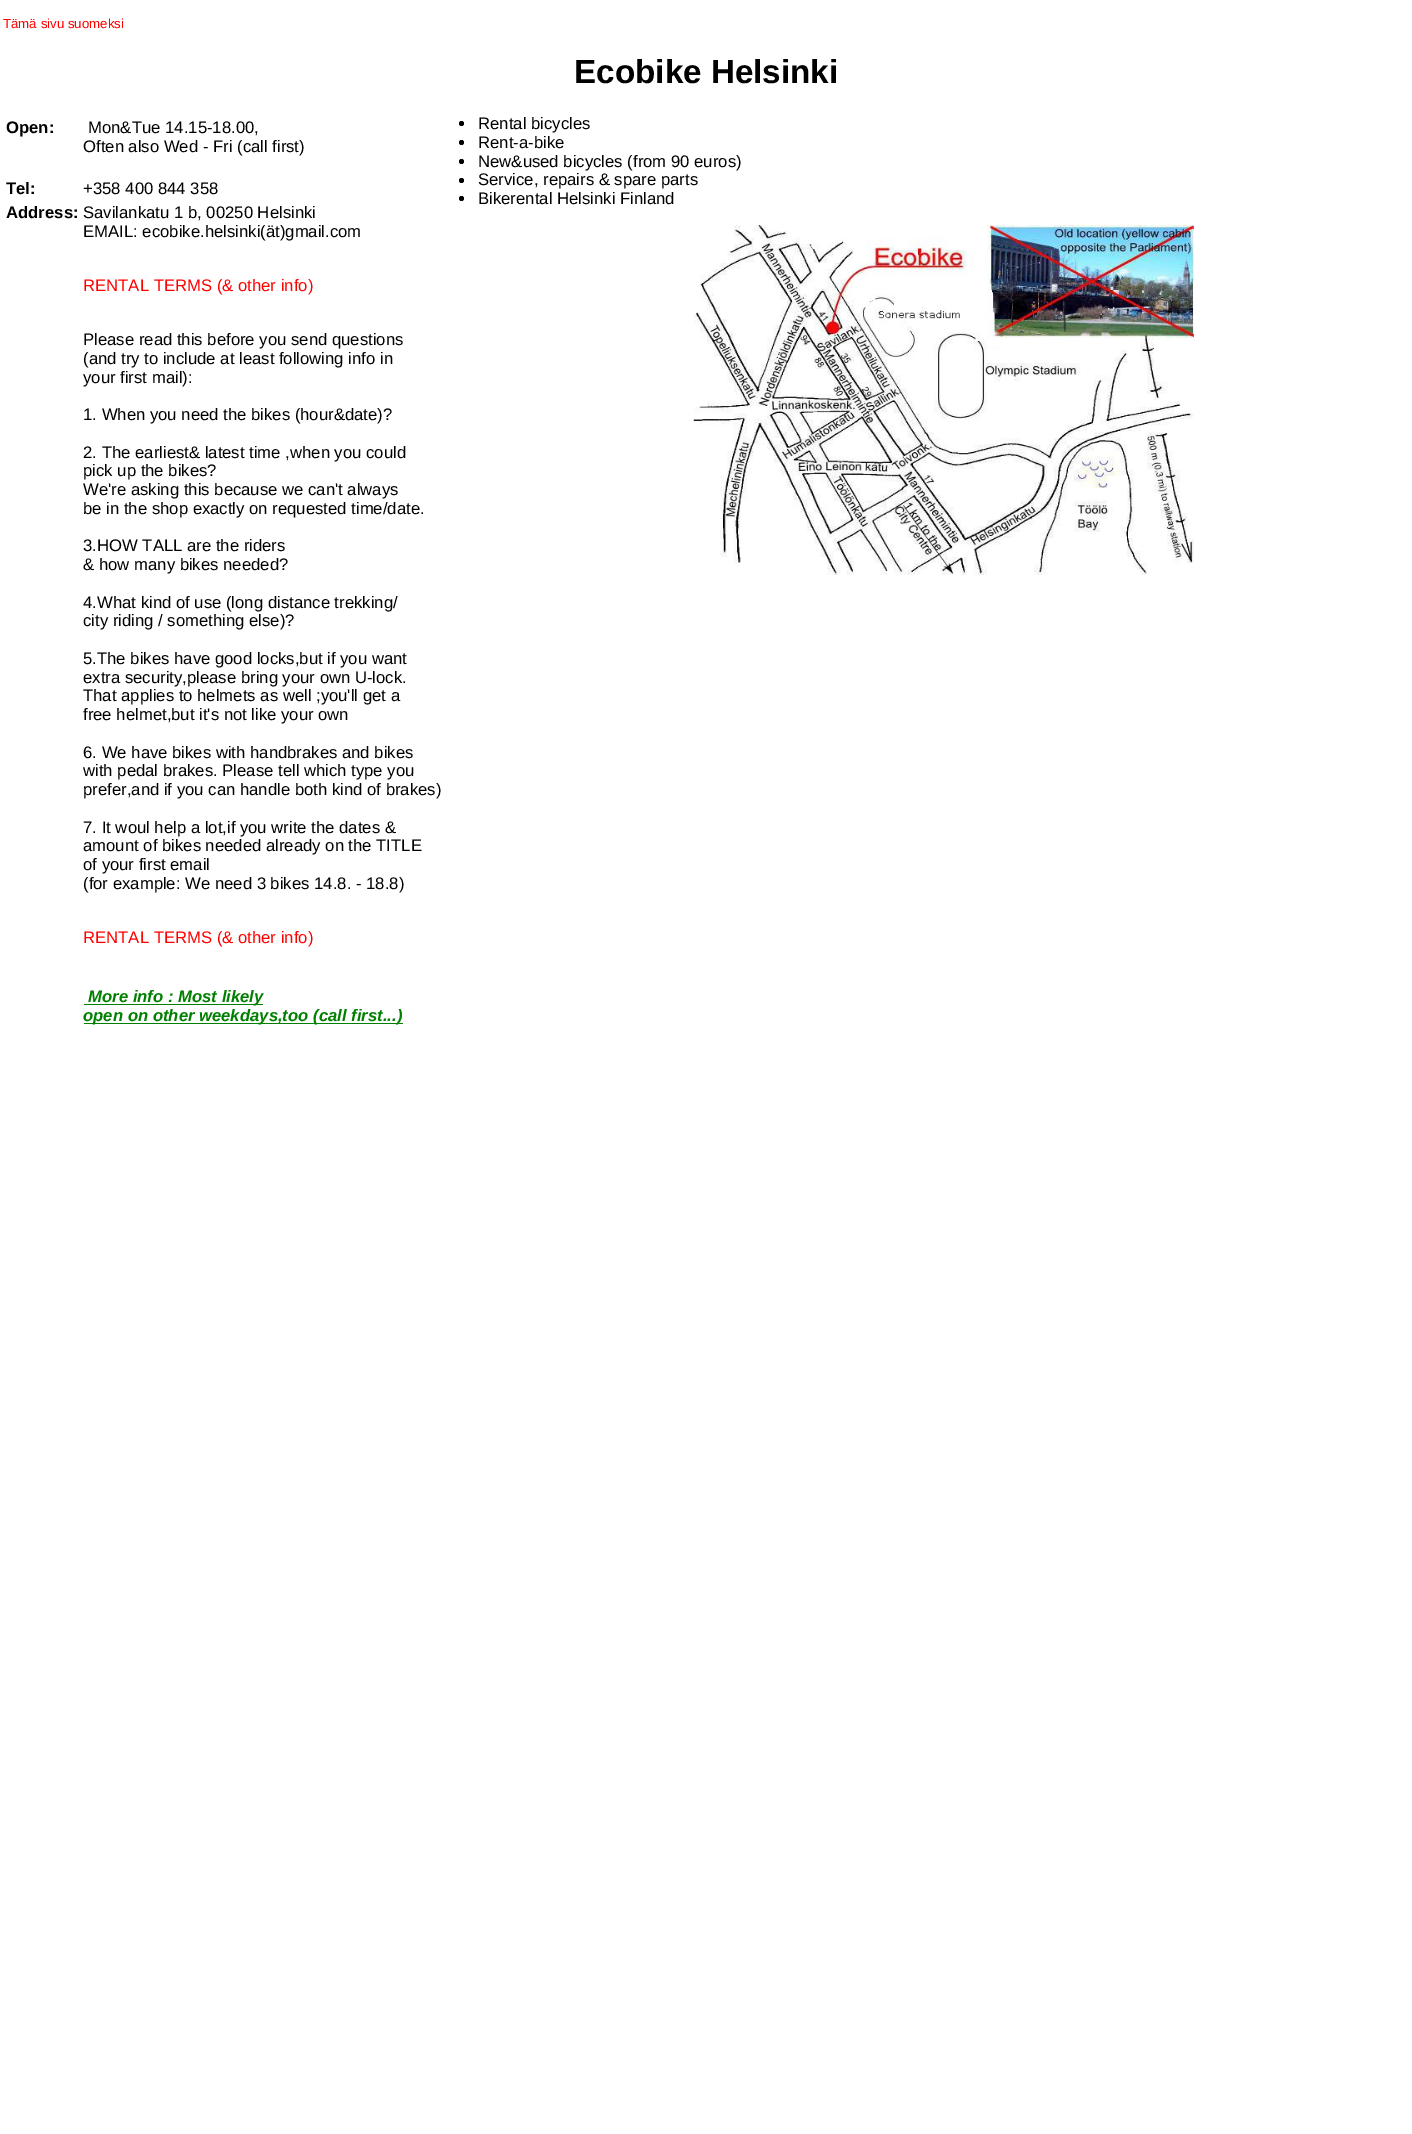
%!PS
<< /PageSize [1412 2134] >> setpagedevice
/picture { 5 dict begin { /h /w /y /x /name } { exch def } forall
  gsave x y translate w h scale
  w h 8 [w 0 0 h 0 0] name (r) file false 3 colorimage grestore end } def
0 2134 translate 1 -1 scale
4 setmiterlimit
1 setgray
0 0 1412 2134 rectfill
/LiberationSans-Regular [13.25 0 0 -13.25 0 0] selectfont
1 0 0 setrgbcolor
3 28 moveto (Tämä sivu suomeksi) show
/LiberationSans-Bold [33.25 0 0 -33.25 0 0] selectfont
0 setgray
574 83 moveto (Ecobike Helsinki) show
/LiberationSans-Bold [16.7 0 0 -16.7 0 0] selectfont
6 133 moveto (Open:) show
/LiberationSans-Regular [16.7 0 0 -16.7 0 0] selectfont
88 133 moveto (Mon&Tue 14.15-18.00,) show
83 152 moveto (Often also Wed - Fri \(call first\)) show
/LiberationSans-Bold [16.7 0 0 -16.7 0 0] selectfont
6 194 moveto (Tel:) show
/LiberationSans-Regular [16.7 0 0 -16.7 0 0] selectfont
83 194 moveto (+358 400 844 358) show
/LiberationSans-Bold [16.7 0 0 -16.7 0 0] selectfont
6 218 moveto (Address:) show
/LiberationSans-Regular [16.7 0 0 -16.7 0 0] selectfont
83 218 moveto (Savilankatu 1 b, 00250 Helsinki) show
83 237 moveto (EMAIL: ecobike.helsinki\(ät\)gmail.com) show
1 0 0 setrgbcolor
83 291 moveto (RENTAL TERMS \(& other info\)) show
0 setgray
83 345 moveto (Please read this before you send questions) show
83 364 moveto (\(and try to include at least following info in) show
83 383 moveto (your first mail\):) show
83 420 moveto (1. When you need the bikes \(hour&date\)?) show
83 458 moveto (2. The earliest& latest time ,when you could) show
83 476 moveto (pick up the bikes?) show
83 495 moveto (We're asking this because we can't always) show
83 514 moveto (be in the shop exactly on requested time/date.) show
83 551 moveto (3.HOW TALL are the riders) show
83 570 moveto (& how many bikes needed?) show
83 608 moveto (4.What kind of use \(long distance trekking/) show
83 626 moveto (city riding / something else\)?) show
83 664 moveto (5.The bikes have good locks,but if you want) show
83 683 moveto (extra security,please bring your own U-lock.) show
83 701 moveto (That applies to helmets as well ;you'll get a) show
83 720 moveto (free helmet,but it's not like your own) show
83 758 moveto (6. We have bikes with handbrakes and bikes) show
83 776 moveto (with pedal brakes. Please tell which type you) show
83 795 moveto (prefer,and if you can handle both kind of brakes\)) show
83 833 moveto (7. It woul help a lot,if you write the dates &) show
83 851 moveto (amount of bikes needed already on the TITLE) show
83 870 moveto (of your first email) show
83 889 moveto (\(for example: We need 3 bikes 14.8. - 18.8\)) show
1 0 0 setrgbcolor
83 943 moveto (RENTAL TERMS \(& other info\)) show
0 0.502 0 setrgbcolor
84 1004 179 1 rectfill
/LiberationSans-BoldItalic [16.7 0 0 -16.7 0 0] selectfont
88 1002 moveto (More info : Most likely) show
84 1023 319 1 rectfill
83 1021 moveto (open on other weekdays,too \(call first...\)) show
0 setgray
newpath 461.5 123.5 2.5 0 360 arc closepath fill
/LiberationSans-Regular [16.7 0 0 -16.7 0 0] selectfont
478 129 moveto (Rental bicycles) show
newpath 461.5 142.5 2.5 0 360 arc closepath fill
478 148 moveto (Rent-a-bike) show
newpath 461.5 161.5 2.5 0 360 arc closepath fill
478 167 moveto (New&used bicycles \(from 90 euros\)) show
newpath 461.5 180.5 2.5 0 360 arc closepath fill
478 185 moveto (Service, repairs & spare parts) show
newpath 461.5 198.5 2.5 0 360 arc closepath fill
478 204 moveto (Bikerental Helsinki Finland) show
(img1.rgb) 693 225 501 350 picture
showpage
